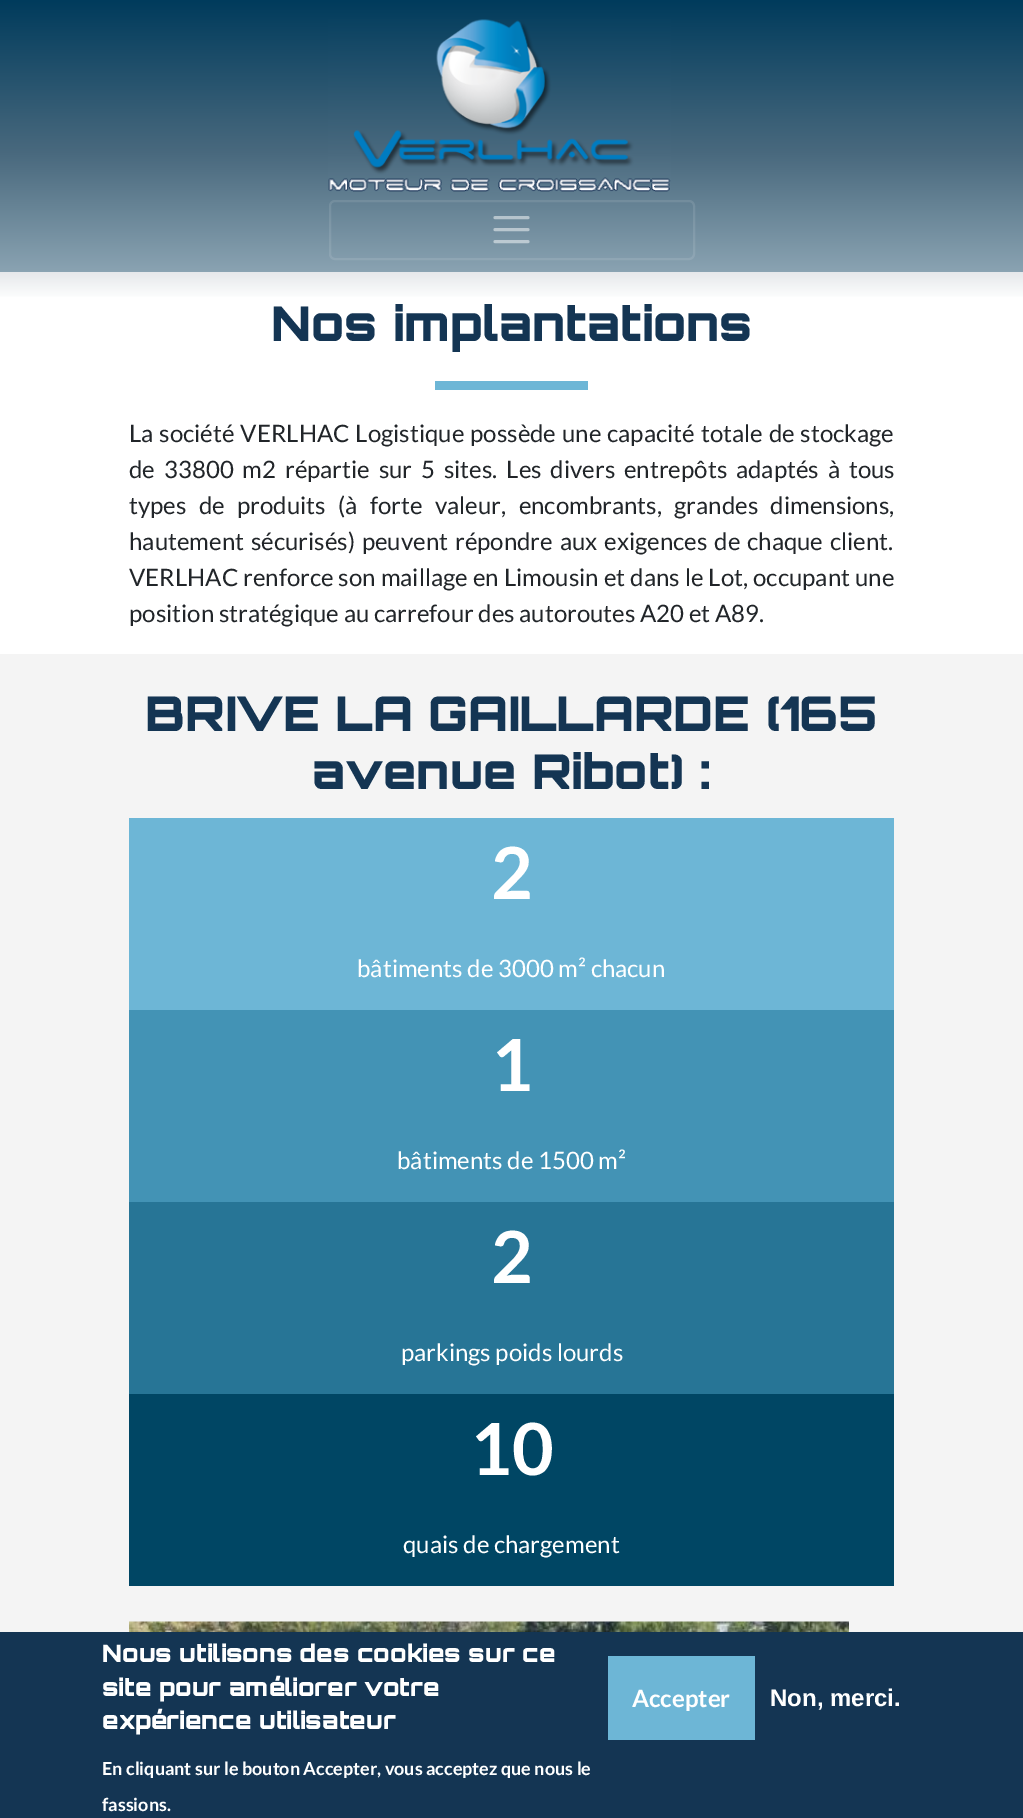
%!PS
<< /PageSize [1023 1818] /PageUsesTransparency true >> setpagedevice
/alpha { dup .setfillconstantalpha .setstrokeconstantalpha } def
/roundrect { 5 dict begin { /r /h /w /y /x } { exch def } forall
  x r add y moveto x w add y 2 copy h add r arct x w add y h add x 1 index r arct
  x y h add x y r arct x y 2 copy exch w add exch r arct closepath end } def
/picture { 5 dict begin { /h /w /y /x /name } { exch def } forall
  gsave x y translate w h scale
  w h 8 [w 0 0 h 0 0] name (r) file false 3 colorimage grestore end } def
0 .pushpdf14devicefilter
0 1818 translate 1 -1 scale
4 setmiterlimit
1 setgray
0 0 1023 1818 rectfill
gsave newpath 0 272 moveto 1023 272 lineto 1023 297 lineto 0 297 lineto closepath clip newpath
<< /ShadingType 2 /ColorSpace /DeviceRGB /Coords [512 0 512 300] /Extend [true true] /Function << /FunctionType 3 /Domain [0 1] /Functions [<< /FunctionType 2 /Domain [0 1] /C0 [0 0.231 0.361] /C1 [0.478 0.533 0.584] /N 1 >> << /FunctionType 2 /Domain [0 1] /C0 [0.478 0.533 0.584] /C1 [1 1 1] /N 1 >>] /Bounds [0.51] /Encode [0 1 0 1] >> >> shfill grestore
gsave newpath 0 0 moveto 1023 0 lineto 1023 272 lineto 0 272 lineto closepath clip newpath
<< /ShadingType 2 /ColorSpace /DeviceRGB /Coords [512 0 512 300] /Extend [true true] /Function << /FunctionType 3 /Domain [0 1] /Functions [<< /FunctionType 2 /Domain [0 1] /C0 [0 0.231 0.361] /C1 [0.286 0.412 0.494] /N 1 >> << /FunctionType 2 /Domain [0 1] /C0 [0.286 0.412 0.494] /C1 [0.6 0.694 0.745] /N 1 >>] /Bounds [0.51] /Encode [0 1 0 1] >> >> shfill grestore
(img1.rgb) 328 19 343 173 picture
0.1 alpha
2 setlinewidth
330 201 364 58 5 roundrect stroke
0.5 alpha
3 setlinewidth
1 setlinecap
newpath 495 217.5 moveto 528 217.5 lineto 495 229.5 moveto 528 229.5 lineto 495 241.5 moveto 528 241.5 lineto stroke
/Orbitron-Black [48 0 0 -48 0 0] selectfont
1 alpha
0.078 0.208 0.325 setrgbcolor
271 341 moveto (Nos implantations) show
0.427 0.714 0.839 setrgbcolor
435 381 153 9 rectfill
/Lato-Regular [24 0 0 -24 0 0] selectfont
0.129 0.145 0.161 setrgbcolor
129 442 moveto 1.25 0 32 (La société VERLHAC Logistique possède une capacité totale de stockage) widthshow
129 478 moveto 4.25 0 32 (de 33800 m2 répartie sur 5 sites. Les divers entrepôts adaptés à tous) widthshow
129 514 moveto 7.75 0 32 (types de produits \(à forte valeur, encombrants, grandes dimensions,) widthshow
129 550 moveto 2.25 0 32 (hautement sécurisés\) peuvent répondre aux exigences de chaque client.) widthshow
129 586 moveto 0.4 0 32 (VERLHAC renforce son maillage en Limousin et dans le Lot, occupant une) widthshow
129 622 moveto (position stratégique au carrefour des autoroutes A20 et A89.) show
0.957 setgray
0 654 1023 978 rectfill
/Orbitron-Black [48 0 0 -48 0 0] selectfont
0.078 0.208 0.325 setrgbcolor
145 731 moveto (BRIVE LA GAILLARDE \(165) show
312 789 moveto (avenue Ribot\) :) show
0.427 0.714 0.839 setrgbcolor
129 818 765 192 rectfill
/Lato-Bold [72 0 0 -72 0 0] selectfont
1 setgray
491 899 moveto (2) show
/Lato-Regular [24 0 0 -24 0 0] selectfont
357 977 moveto (bâtiments de 3000 m² chacun) show
0.263 0.576 0.71 setrgbcolor
129 1010 765 192 rectfill
/Lato-Bold [72 0 0 -72 0 0] selectfont
1 setgray
491 1091 moveto (1) show
/Lato-Regular [24 0 0 -24 0 0] selectfont
397 1169 moveto (bâtiments de 1500 m²) show
0.153 0.459 0.588 setrgbcolor
129 1202 765 192 rectfill
/Lato-Bold [72 0 0 -72 0 0] selectfont
1 setgray
491 1283 moveto (2) show
/Lato-Regular [24 0 0 -24 0 0] selectfont
401 1361 moveto (parkings poids lourds) show
0 0.275 0.392 setrgbcolor
129 1394 765 192 rectfill
/Lato-Bold [72 0 0 -72 0 0] selectfont
1 setgray
470 1475 moveto (10) show
/Lato-Regular [24 0 0 -24 0 0] selectfont
403 1553 moveto (quais de chargement) show
(img2.rgb) 129 1621 720 11 picture
0.078 0.208 0.325 setrgbcolor
0 1632 1023 186 rectfill
/Orbitron-Black [24 0 0 -24 0 0] selectfont
1 setgray
102 1662 moveto (Nous utilisons des cookies sur ce) show
102 1696 moveto (site pour améliorer votre) show
102 1729 moveto (expérience utilisateur) show
/Lato-Bold [18 0 0 -18 0 0] selectfont
102 1775 moveto (En cliquant sur le bouton Accepter, vous acceptez que nous le) show
102 1811 moveto (fassions.) show
0.427 0.714 0.839 setrgbcolor
608 1656 147 84 rectfill
/Lato-Bold [24 0 0 -24 0 0] selectfont
1 setgray
632 1707 moveto (Accepter) show
/LiberationSans-Bold [24 0 0 -24 0 0] selectfont
770 1706 moveto (Non, merci.) show
.poppdf14devicefilter showpage
